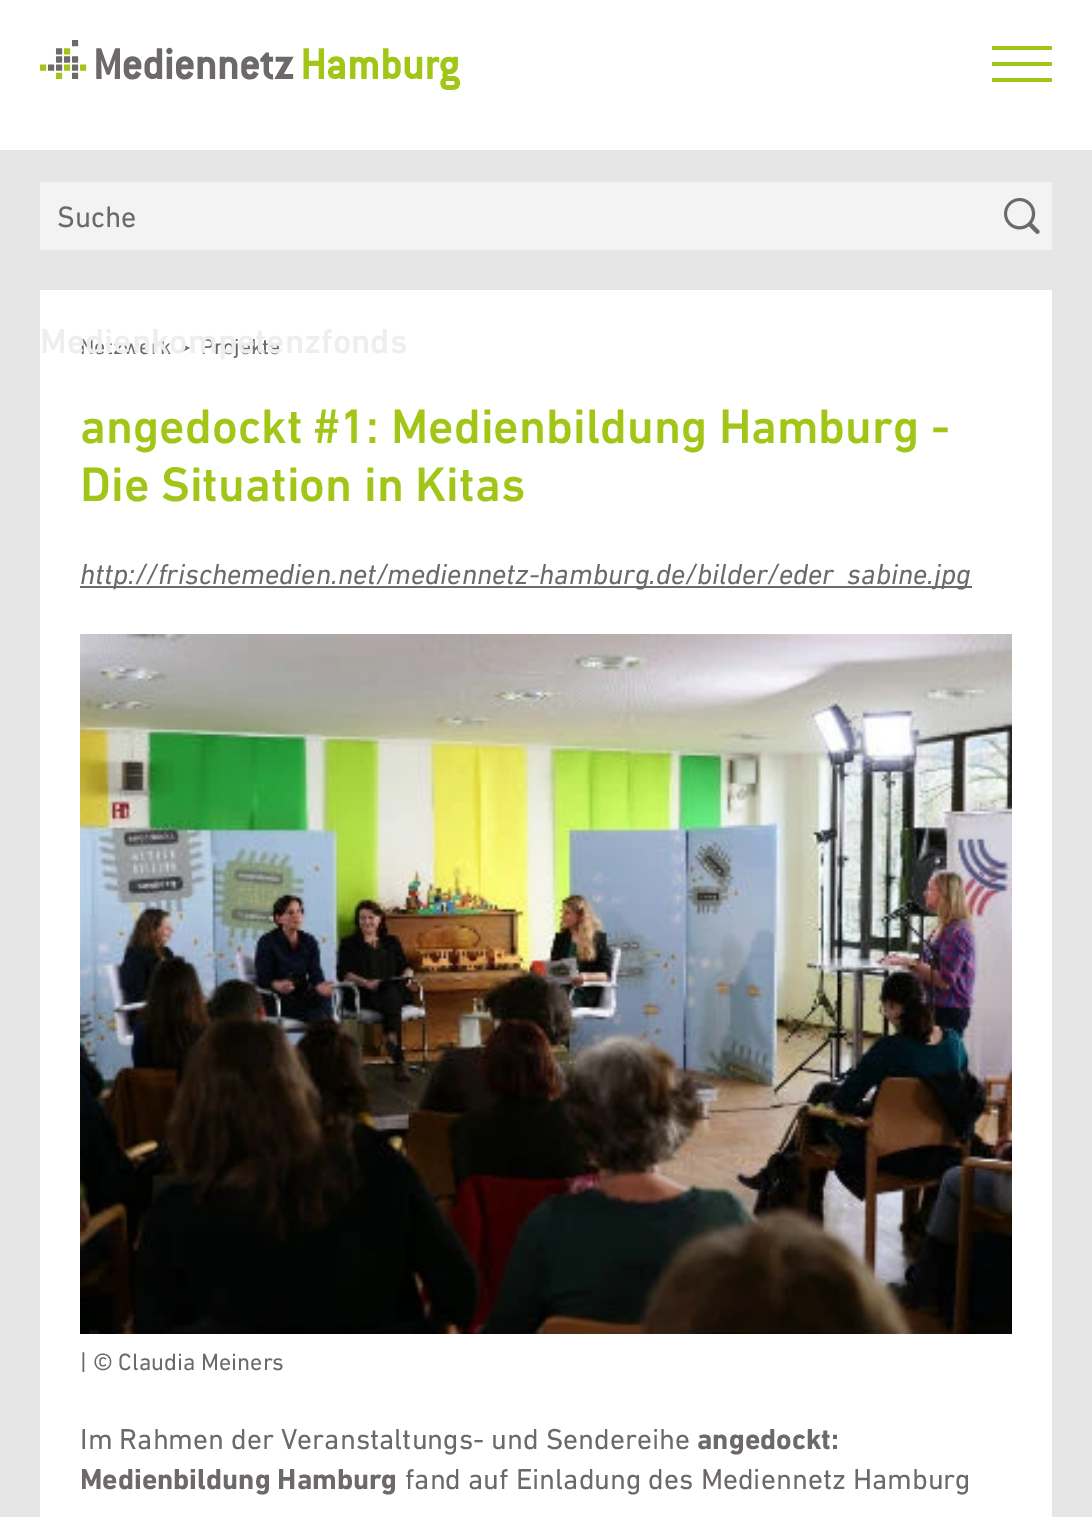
%!PS
<< /PageSize [1092 1517] >> setpagedevice
/picture { 5 dict begin { /h /w /y /x /name } { exch def } forall
  gsave x y translate w h scale
  w h 8 [w 0 0 h 0 0] name (r) file false 3 colorimage grestore end } def
0 1517 translate 1 -1 scale
4 setmiterlimit
0.902 setgray
0 0 1092 1517 rectfill
0.953 setgray
40 182 1012 68 rectfill
/DINNext-Regular [30 0 0 -30 0 0] selectfont
0.424 0.412 0.408 setrgbcolor
57 227 moveto (Suche) show
(img1.rgb) 1004 198 36 36 picture
1 setgray
0 0 1092 150 rectfill
(img2.rgb) 40 40 420 50 picture
0.635 0.776 0.09 setrgbcolor
992 46 60 4 rectfill
992 62 60 4 rectfill
992 78 60 4 rectfill
1 setgray
40 290 1012 1227 rectfill
/DINNext-Regular [22 0 0 -22 0 0] selectfont
0.424 0.412 0.408 setrgbcolor
80 354 moveto (Netzwerk) show
newpath 182 352 moveto 182 344 lineto 190 348 lineto closepath fill
201 354 moveto (Projekte) show
/DINNext-Medium [35.25 0 0 -35.25 0 0] selectfont
0.937 0.933 0.933 setrgbcolor
40 353 moveto (Medienkompetenzfonds) show
/DINNext-Medium [49.3 0 0 -49.3 0 0] selectfont
0.635 0.776 0.09 setrgbcolor
80 443 moveto (angedockt #1: Medienbildung Hamburg -) show
80 501 moveto (Die Situation in Kitas) show
0.424 0.412 0.408 setrgbcolor
80 586 892 2 rectfill
/DINNext-Italic [29.3 0 0 -29.3 0 0] selectfont
80 584 moveto (http://frischemedien.net/mediennetz-hamburg.de/bilder/eder_sabine.jpg) show
(img3.rgb) 80 634 932 700 picture
/DINNext-Regular [24 0 0 -24 0 0] selectfont
80 1370 moveto (| © Claudia Meiners) show
/DINNext-Regular [29.3 0 0 -29.3 0 0] selectfont
80 1449 moveto (Im Rahmen der Veranstaltungs- und Sendereihe) show
/DINNext-Bold [29.3 0 0 -29.3 0 0] selectfont
697 1449 moveto (angedockt:) show
80 1489 moveto (Medienbildung Hamburg) show
/DINNext-Regular [29.3 0 0 -29.3 0 0] selectfont
405 1489 moveto (fand auf Einladung des Mediennetz Hamburg) show
showpage
